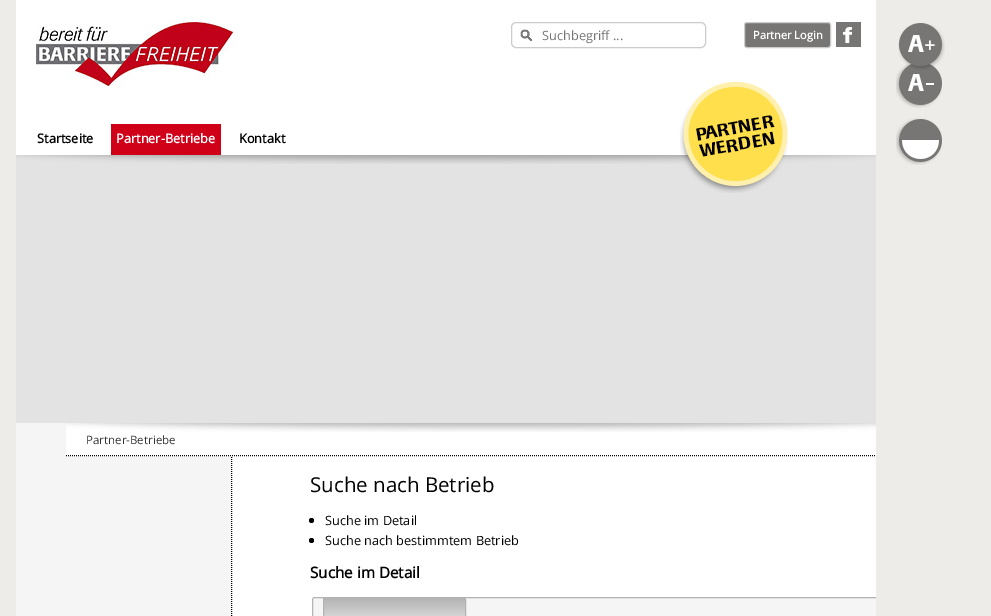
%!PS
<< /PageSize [991 616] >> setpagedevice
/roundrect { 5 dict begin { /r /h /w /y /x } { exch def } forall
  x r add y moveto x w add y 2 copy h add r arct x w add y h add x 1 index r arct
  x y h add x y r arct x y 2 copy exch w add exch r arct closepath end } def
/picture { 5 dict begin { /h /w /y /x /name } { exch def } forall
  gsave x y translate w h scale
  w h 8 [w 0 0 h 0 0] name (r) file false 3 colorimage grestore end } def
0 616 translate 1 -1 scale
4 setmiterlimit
0.933 0.925 0.91 setrgbcolor
0 0 991 616 rectfill
1 setgray
232 456 644 160 rectfill
0.89 setgray
16 155 860 268 rectfill
(img1.rgb) 16 155 860 9 picture
1 setgray
16 0 860 155 rectfill
(img2.rgb) 36 22 197 64 picture
(img3.rgb) 520 29 12 12 picture
0.8 setgray
511.5 22.5 194 25 4.5 roundrect stroke
/OpenSans-Regular [12.75 0 0 -12.75 0 0] selectfont
0.459 setgray
542 40 moveto (Suchbegriff ...) show
0.467 0.463 0.455 setrgbcolor
744.5 22.5 86 25 2.5 roundrect gsave fill grestore
0.8 setgray
stroke
/OpenSans-Bold [11 0 0 -11 0 0] selectfont
1 setgray
753 39 moveto (Partner Login) show
(img4.rgb) 836 22 25 25 picture
/OpenSans-Bold [12.75 0 0 -12.75 0 0] selectfont
0 setgray
37 143 moveto (Startseite) show
0.82 0 0.098 setrgbcolor
111 124 110 31 rectfill
1 setgray
116 143 moveto (Partner-Betriebe) show
0 setgray
239 143 moveto (Kontakt) show
(img5.rgb) 680 81 108 112 picture
0.961 setgray
16 423 216 193 rectfill
0 setgray
[1 1] 0 setdash
newpath 231.5 423 moveto 231.5 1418 lineto stroke
1 setgray
66 423 810 33 rectfill
(img6.rgb) 66 423 810 9 picture
gsave
16 423 860 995 rectclip
0 setgray
newpath 66 455.5 moveto 926 455.5 lineto stroke
grestore
/OpenSans-Regular [11.5 0 0 -11.5 0 0] selectfont
0.2 setgray
86 444 moveto (Partner-Betriebe) show
/OpenSans-Regular [20.5 0 0 -20.5 0 0] selectfont
0 setgray
310 492 moveto (Suche nach Betrieb) show
newpath 311.5 520.5 2.5 0 360 arc closepath fill
/OpenSans-Regular [12.75 0 0 -12.75 0 0] selectfont
325 525 moveto (Suche im Detail) show
newpath 311.5 540.5 2.5 0 360 arc closepath fill
325 545 moveto (Suche nach bestimmtem Betrieb) show
/OpenSans-Bold [15.25 0 0 -15.25 0 0] selectfont
310 578 moveto (Suche im Detail) show
0.961 setgray
newpath 315 597 moveto 876 597 lineto 876 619 lineto 315 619 lineto 313.5 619 312 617.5 312 616 curveto 312 600 lineto 312 598.5 313.5 597 315 597 curveto closepath fill
gsave
16 423 860 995 rectclip
0.702 0.702 0.706 setrgbcolor
[] 0 setdash
312.5 597.5 589 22 2.5 roundrect stroke
grestore
gsave
323 597 143 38 3 roundrect clip newpath
gsave newpath 323 598 moveto 466 598 lineto 466 616 lineto 323 616 lineto closepath clip newpath
<< /ShadingType 2 /ColorSpace /DeviceRGB /Coords [395 598 395 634] /Extend [true true] /Function << /FunctionType 2 /Domain [0 1] /C0 [0.702 0.702 0.706] /C1 [0.953 0.953 0.953] /N 1 >> >> shfill grestore
grestore
0.702 0.702 0.706 setrgbcolor
[] 0 setdash
323.5 597.5 142 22 2.5 roundrect stroke
(img8.rgb) 896 63 46 45 picture
(img7.rgb) 898 23 47 47 picture
(img9.rgb) 896 118 46 47 picture
showpage
